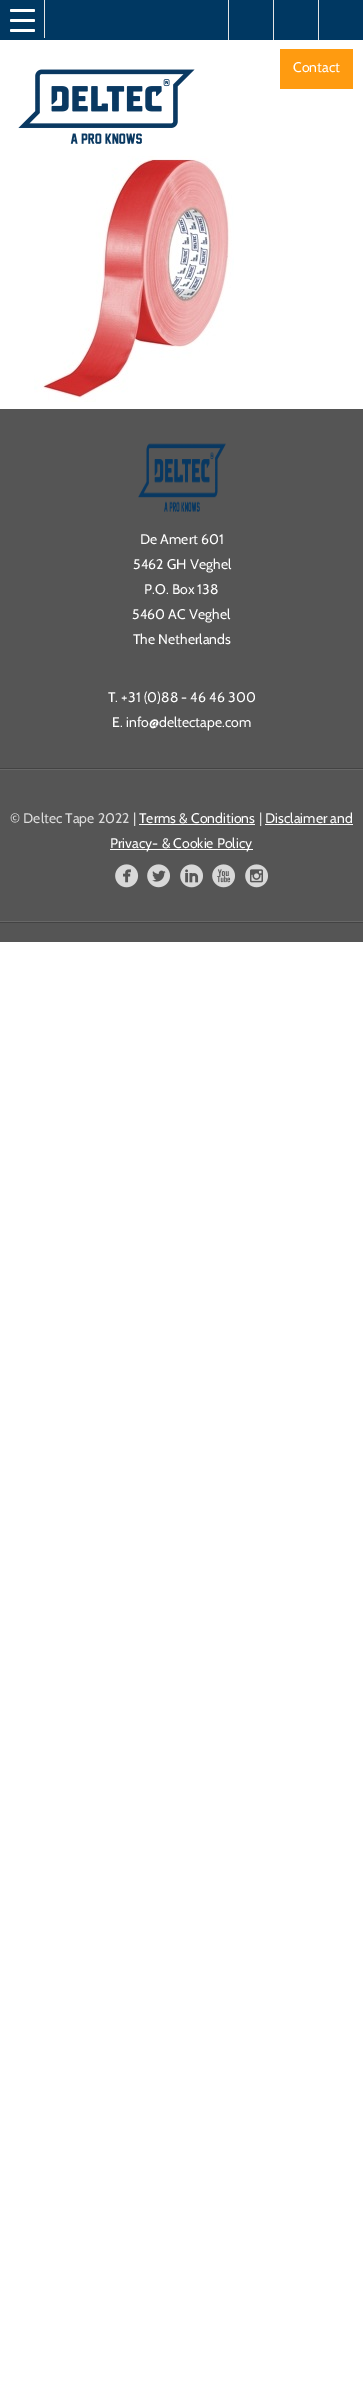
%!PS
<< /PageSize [363 2394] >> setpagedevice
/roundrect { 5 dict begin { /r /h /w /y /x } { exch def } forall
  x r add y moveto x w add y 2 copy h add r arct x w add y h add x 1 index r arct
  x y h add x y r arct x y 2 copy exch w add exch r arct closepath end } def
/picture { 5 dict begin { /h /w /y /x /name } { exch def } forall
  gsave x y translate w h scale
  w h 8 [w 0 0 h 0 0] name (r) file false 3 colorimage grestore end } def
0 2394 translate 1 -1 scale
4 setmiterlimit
1 setgray
0 0 363 2394 rectfill
0 0.22 0.384 setrgbcolor
0 0 363 40 rectfill
0.898 setgray
44 0 1 38 rectfill
1 setgray
10 19 25 3 1.5 roundrect fill
10 9 25 3 1.5 roundrect fill
10 29 25 3 1.5 roundrect fill
0.898 setgray
228 0 1 40 rectfill
273 0 1 40 rectfill
318 0 1 40 rectfill
1 0.608 0.063 setrgbcolor
280 49 73 40 rectfill
/Cabin-Regular [14 0 0 -14 0 0] selectfont
1 setgray
293 72 moveto (Contact) show
(img1.rgb) 18 69 177 75 picture
(img2.rgb) 34 156 200 246 picture
0.333 setgray
0 409 363 533 rectfill
(img3.rgb) 138 443 88 69 picture
1 setgray
140 544 moveto (De Amert 601) show
133 569 moveto (5462 GH Veghel) show
144 594 moveto (P.O. Box 138) show
132 619 moveto (5460 AC Veghel) show
133 644 moveto (The Netherlands) show
108 702 moveto (T. +31 \(0\)88 - 46 46 300) show
112 727 moveto (E. info@deltectape.com) show
0.263 setgray
0 768 363 1 rectfill
0 922 363 1 rectfill
0.404 setgray
0 769 363 1 rectfill
0 921 363 1 rectfill
0.863 setgray
10 823 moveto (© Deltec Tape 2022 |) show
1 setgray
139 823 moveto (Terms & Conditions) show
139 824 116 1 rectfill
0.863 setgray
259 823 moveto (|) show
1 setgray
265 823 moveto (Disclaimer and) show
265 824 88 1 rectfill
110 849 143 1 rectfill
110 848 moveto (Privacy- & Cookie Policy) show
(img4.rgb) 115 864 24 24 picture
(img5.rgb) 147 864 23 24 picture
(img6.rgb) 180 864 23 24 picture
(img7.rgb) 212 864 23 24 picture
(img8.rgb) 245 864 23 24 picture
showpage
